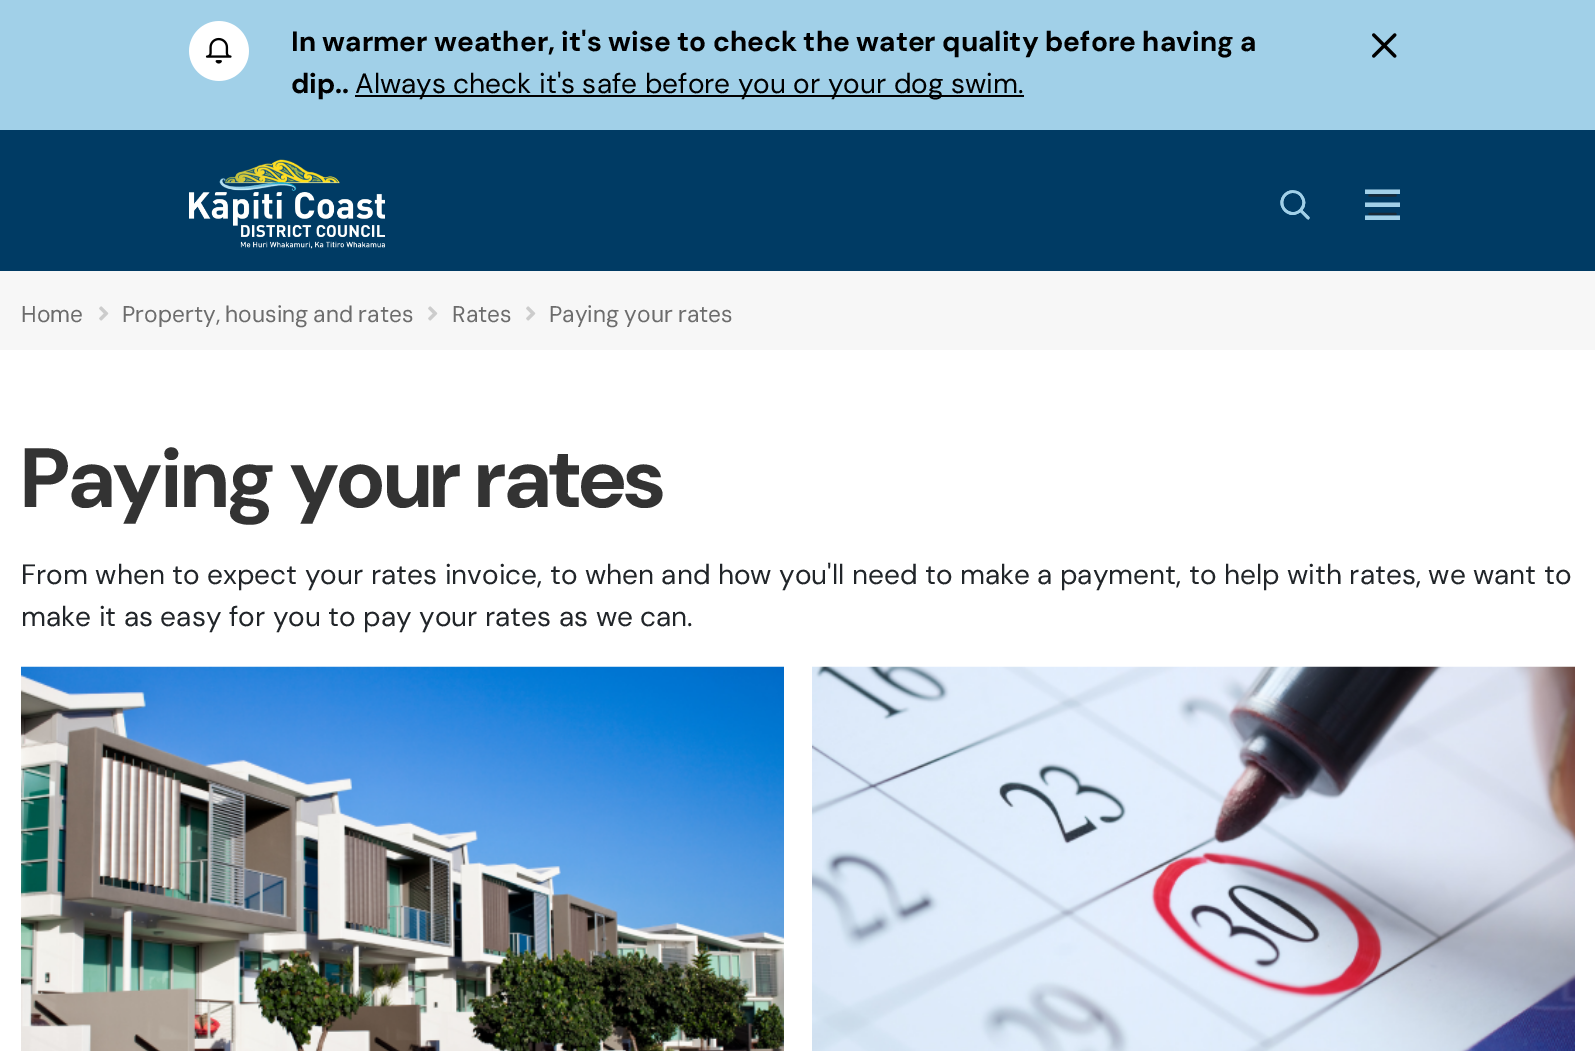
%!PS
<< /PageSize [1595 1051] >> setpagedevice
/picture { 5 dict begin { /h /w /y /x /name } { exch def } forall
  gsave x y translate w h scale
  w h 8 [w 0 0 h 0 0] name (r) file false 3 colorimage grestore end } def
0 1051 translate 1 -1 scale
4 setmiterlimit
1 setgray
0 0 1595 1051 rectfill
0.631 0.816 0.91 setrgbcolor
0 0 1595 130 rectfill
(img1.rgb) 189 21 60 60 picture
/DMSans-Bold [28 0 0 -28 0 0] selectfont
0 setgray
291 51 moveto (In warmer weather, it's wise to check the water quality before having a) show
291 93 moveto (dip..) show
355 95 669 2 rectfill
/DMSans-Regular [28 0 0 -28 0 0] selectfont
355 93 moveto (Always check it's safe before you or your dog swim.) show
(img2.rgb) 1372 33 25 25 picture
0 0.231 0.392 setrgbcolor
0 130 1595 141 rectfill
(img3.rgb) 189 159 196 90 picture
(img4.rgb) 1280 190 30 30 picture
0.098 0.169 0.22 setrgbcolor
2.3 setlinewidth
1 setlinecap
newpath 1369.5 195.5 moveto 1395.5 195.5 lineto 1369.5 205 moveto 1395.5 205 lineto 1369.5 214 moveto 1395.5 214 lineto stroke
0.631 0.816 0.91 setrgbcolor
newpath 1365 189.5 moveto 1365 194 lineto 1400 194 lineto 1400 189.5 lineto closepath 1365 202.5 moveto 1365 207 lineto 1400 207 lineto 1400 202.5 lineto closepath 1365 215.5 moveto 1365 220 lineto 1400 220 lineto 1400 215.5 lineto closepath fill
0.969 setgray
0 271 1595 79 rectfill
/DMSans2-Regular [22.75 0 0 -22.75 0 0] selectfont
0.424 setgray
21 322 moveto (Home) show
(img5.rgb) 99 306 10 15 picture
122 322 moveto -1 0 32 (Property, housing and rates) widthshow
(img5.rgb) 428 306 10 15 picture
452 322 moveto (Rates) show
(img5.rgb) 526 306 10 15 picture
549 322 moveto -1 0 32 (Paying your rates) widthshow
/DMSans2-Bold [84 0 0 -84 0 0] selectfont
0.2 setgray
21 507 moveto -0.9 0 (Paying your rates) ashow
/DMSans-Regular [28 0 0 -28 0 0] selectfont
0.129 0.145 0.161 setrgbcolor
21 584 moveto (From when to expect your rates invoice, to when and how you'll need to make a payment, to help with rates, we want to) show
21 626 moveto (make it as easy for you to pay your rates as we can.) show
(img6.rgb) 21 666 763 385 picture
(img7.rgb) 812 666 763 385 picture
showpage
